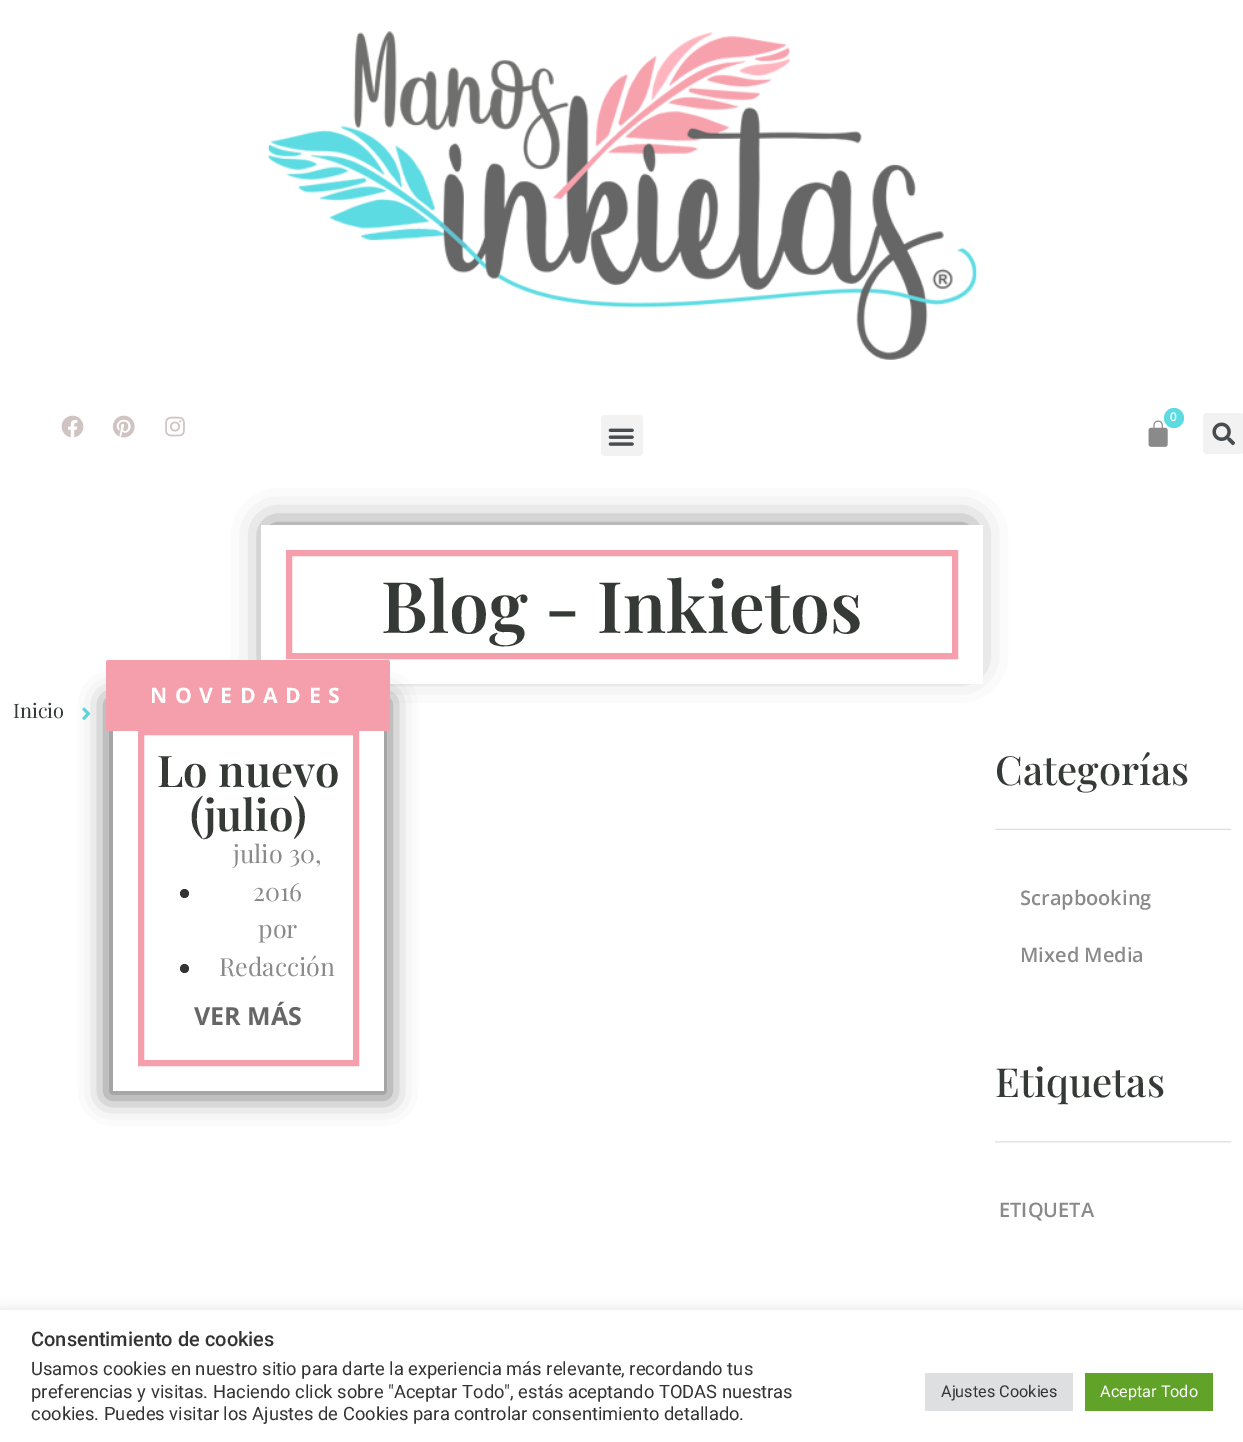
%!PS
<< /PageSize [1243 1442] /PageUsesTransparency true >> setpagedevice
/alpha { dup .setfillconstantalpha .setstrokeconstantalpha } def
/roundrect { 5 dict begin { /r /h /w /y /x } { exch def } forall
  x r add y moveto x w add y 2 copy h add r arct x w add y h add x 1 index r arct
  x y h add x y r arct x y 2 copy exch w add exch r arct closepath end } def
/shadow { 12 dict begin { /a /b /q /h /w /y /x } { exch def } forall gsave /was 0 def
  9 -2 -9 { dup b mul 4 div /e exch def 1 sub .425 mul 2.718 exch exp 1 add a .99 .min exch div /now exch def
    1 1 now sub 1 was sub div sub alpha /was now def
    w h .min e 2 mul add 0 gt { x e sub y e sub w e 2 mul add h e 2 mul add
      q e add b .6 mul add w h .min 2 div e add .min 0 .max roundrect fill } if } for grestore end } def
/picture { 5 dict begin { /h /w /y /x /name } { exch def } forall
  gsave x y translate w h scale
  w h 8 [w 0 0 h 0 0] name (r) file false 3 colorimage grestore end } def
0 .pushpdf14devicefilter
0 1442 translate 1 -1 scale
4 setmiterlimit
1 setgray
0 0 1243 1442 rectfill
(img1.rgb) 268 31 709 329 picture
(img2.rgb) 61 415 23 23 picture
(img3.rgb) 112 415 23 23 picture
(img4.rgb) 165 416 20 21 picture
0.949 setgray
601 415 42 41 4 roundrect fill
(img5.rgb) 608 428 26 18 picture
(img6.rgb) 1148 420 20 27 picture
0.361 0.859 0.89 setrgbcolor
newpath 1174 418 10 0 360 arc closepath fill
/OpenSans-SemiBold [12 0 0 -12 0 0] selectfont
1 setgray
1170 421 moveto (0) show
0.949 setgray
1203 413 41 41 4 roundrect fill
(img7.rgb) 1212 422 24 24 picture
0 setgray
269 526 701 139 0 17 0.54 shadow
1 setgray
261 525 722 159 rectfill
0.957 0.624 0.671 setrgbcolor
6 setlinewidth
289 553 666 103 rectstroke
/PlayfairDisplay-SemiBold [71.25 0 0 -71.25 0 0] selectfont
0.212 0.227 0.212 setrgbcolor
381 633 moveto (Blog - Inkietos) show
/PlayfairDisplay-Regular [20 0 0 -20 0 0] selectfont
13 718 moveto (Inicio) show
(img8.rgb) 82 707 9 13 picture
0 setgray
106 698 284 400 0 12.5 0.5 shadow
1 setgray
113 731 271 360 rectfill
0.957 0.624 0.671 setrgbcolor
141 732 215 331 rectstroke
106 660 284 71 2.5 roundrect fill
/OpenSans-Bold [21.25 0 0 -21.25 0 0] selectfont
1 setgray
150 703 moveto 7.5 0 (NOVEDADES) ashow
/PlayfairDisplay-SemiBold [43.75 0 0 -43.75 0 0] selectfont
0.212 0.227 0.212 setrgbcolor
157 787 moveto (Lo nuevo) show
190 831 moveto (\(julio\)) show
0.2 setgray
newpath 184.5 893.5 4.5 0 360 arc closepath fill
/PlayfairDisplay-Regular [25 0 0 -25 0 0] selectfont
0.541 setgray
233 863 moveto (julio 30,) show
253 901 moveto (2016) show
0.2 setgray
newpath 184.5 968.5 4.5 0 360 arc closepath fill
0.541 setgray
258 938 moveto (por) show
219 976 moveto (Redacción) show
/OpenSans-Bold [25 0 0 -25 0 0] selectfont
0.4 setgray
194 1025 moveto (VER MÁS) show
/PlayfairDisplay-Medium [40 0 0 -40 0 0] selectfont
0.212 0.227 0.212 setrgbcolor
995 785 moveto (Categorías) show
(img9.rgb) 995 828 237 2 picture
/OpenSans-SemiBold [20 0 0 -20 0 0] selectfont
0.541 setgray
1020 905 moveto (Scrapbooking) show
1020 962 moveto (Mixed Media) show
/PlayfairDisplay-Medium [40 0 0 -40 0 0] selectfont
0.212 0.227 0.212 setrgbcolor
995 1097 moveto (Etiquetas) show
(img10.rgb) 995 1141 237 2 picture
/OpenSans-SemiBold [20 0 0 -20 0 0] selectfont
0.541 setgray
999 1217 moveto (ETIQUETA) show
0.675 0.671 0.671 setrgbcolor
0 1309 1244 132 0 6 0.3 shadow
1 setgray
0 1310 1243 132 rectfill
/Roboto-Medium [20 0 0 -20 0 0] selectfont
0.2 setgray
31 1346 moveto (Consentimiento de cookies) show
/Roboto-Regular [18.35 0 0 -18.35 0 0] selectfont
31 1375 moveto (Usamos cookies en nuestro sitio para darte la experiencia más relevante, recordando tus) show
31 1398 moveto (preferencias y visitas. Haciendo click sobre "Aceptar Todo", estás aceptando TODAS nuestras) show
31 1420 moveto (cookies. Puedes visitar los Ajustes de Cookies para controlar consentimiento detallado.) show
0.871 0.875 0.878 setrgbcolor
925 1373 148 38 rectfill
/Roboto-Regular [16.25 0 0 -16.25 0 0] selectfont
0.2 setgray
941 1397 moveto (Ajustes Cookies) show
0.38 0.635 0.161 setrgbcolor
1085 1373 128 38 rectfill
1 setgray
1100 1397 moveto (Aceptar Todo) show
.poppdf14devicefilter showpage
